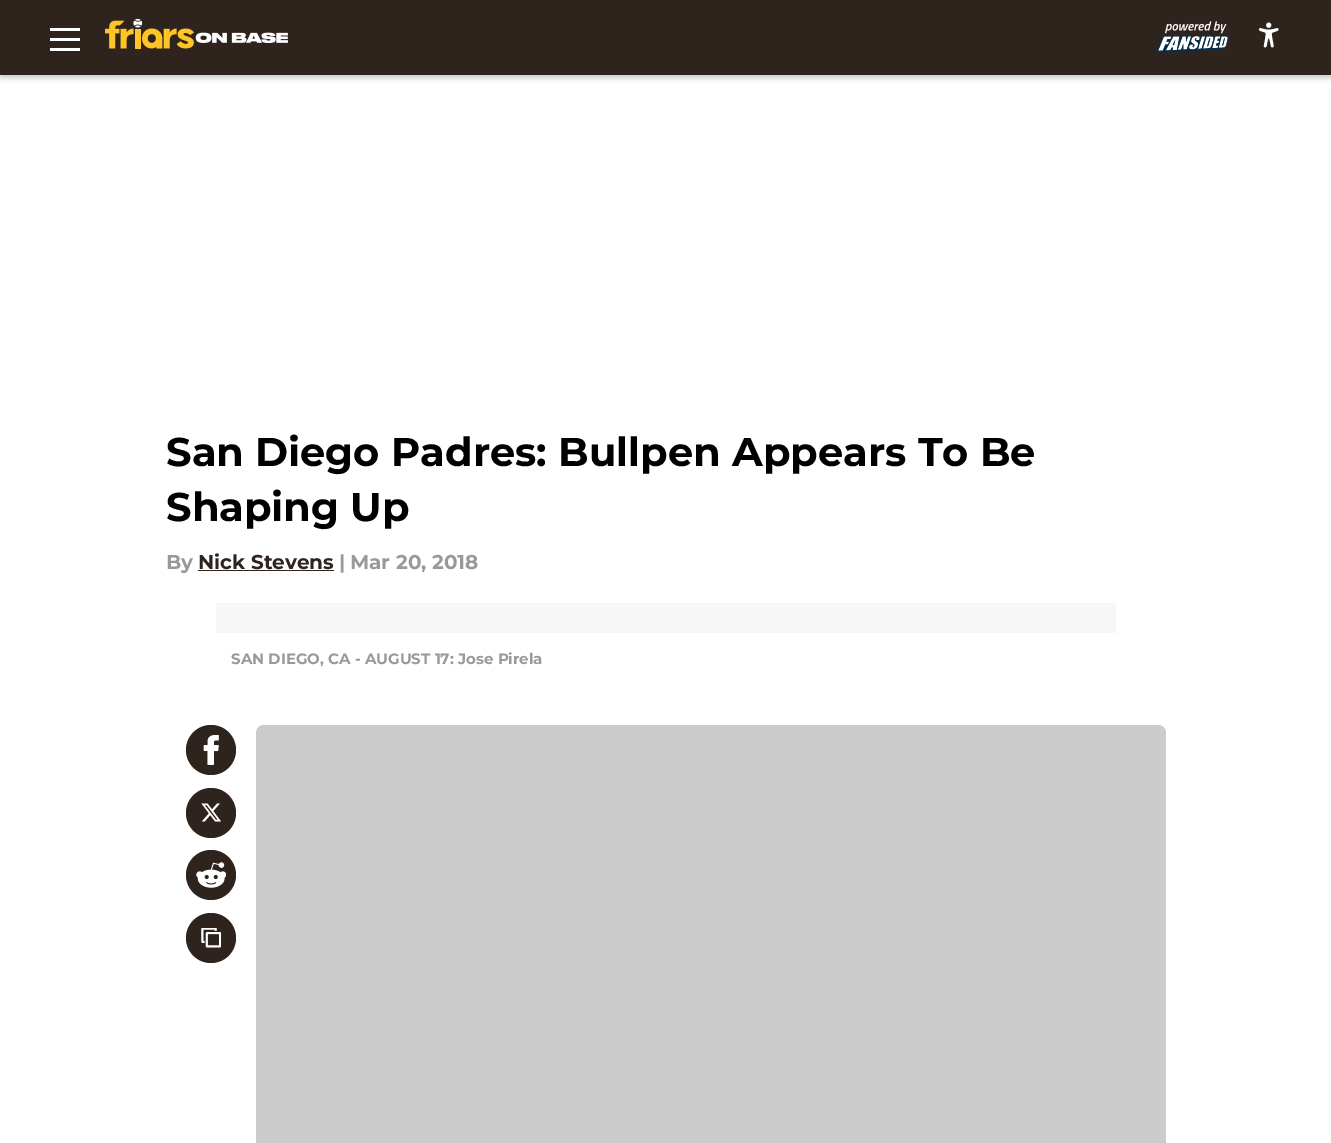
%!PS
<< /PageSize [1331 1143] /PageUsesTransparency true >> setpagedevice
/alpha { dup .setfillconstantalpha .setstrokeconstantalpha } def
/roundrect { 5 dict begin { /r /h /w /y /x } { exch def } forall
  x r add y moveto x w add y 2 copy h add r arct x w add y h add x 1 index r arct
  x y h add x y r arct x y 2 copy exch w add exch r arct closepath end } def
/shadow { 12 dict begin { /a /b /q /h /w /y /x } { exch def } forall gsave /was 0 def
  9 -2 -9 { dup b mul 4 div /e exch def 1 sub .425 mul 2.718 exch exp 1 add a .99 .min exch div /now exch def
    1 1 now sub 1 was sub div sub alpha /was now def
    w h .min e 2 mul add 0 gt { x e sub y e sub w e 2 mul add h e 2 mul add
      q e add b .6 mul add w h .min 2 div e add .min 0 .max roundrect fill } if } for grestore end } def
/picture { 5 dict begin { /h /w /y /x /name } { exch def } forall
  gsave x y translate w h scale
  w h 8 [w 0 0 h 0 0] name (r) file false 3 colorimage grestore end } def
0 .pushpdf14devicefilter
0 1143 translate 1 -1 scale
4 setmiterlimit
1 setgray
0 0 1331 1143 rectfill
0 setgray
0 3 1331 75 0 2.5 0.2 shadow
0.184 0.141 0.114 setrgbcolor
0 0 1331 75 rectfill
1 setgray
50 28 30 3 rectfill
50 38 30 3 rectfill
50 48 30 3 rectfill
(img1.rgb) 105 19 183 30 picture
(img2.rgb) 1155 21 74 32 picture
(img3.rgb) 1258 22 21 26 picture
/Montserrat-Thin [40 0 0 -40 0 0] selectfont
0 setgray
166 466 moveto (San Diego Padres: Bullpen Appears To Be) show
166 521 moveto (Shaping Up) show
/Montserrat-Thin [20 0 0 -20 0 0] selectfont
0.6 setgray
166 569 moveto (By) show
0.184 0.141 0.114 setrgbcolor
198 569 moveto (Nick Stevens) show
198 570 136 1 rectfill
0.6 setgray
339 569 moveto (|) show
350 569 moveto (Mar 20, 2018) show
0.969 setgray
216 603 900 30 rectfill
/Montserrat-Thin [15 0 0 -15 0 0] selectfont
0.6 setgray
231 664 moveto (SAN DIEGO, CA - AUGUST 17: Jose Pirela) show
0.184 0.141 0.114 setrgbcolor
newpath 211 750 25 0 360 arc closepath fill
(img4.rgb) 203 735 16 30 picture
newpath 211 813 25 0 360 arc closepath fill
(img5.rgb) 201 803 20 19 picture
newpath 211 875 25 0 360 arc closepath fill
(img6.rgb) 196 862 30 26 picture
newpath 211 938 25 0 360 arc closepath fill
(img7.rgb) 201 928 20 20 picture
0.8 setgray
256 725 910 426 8 roundrect fill
.poppdf14devicefilter showpage
